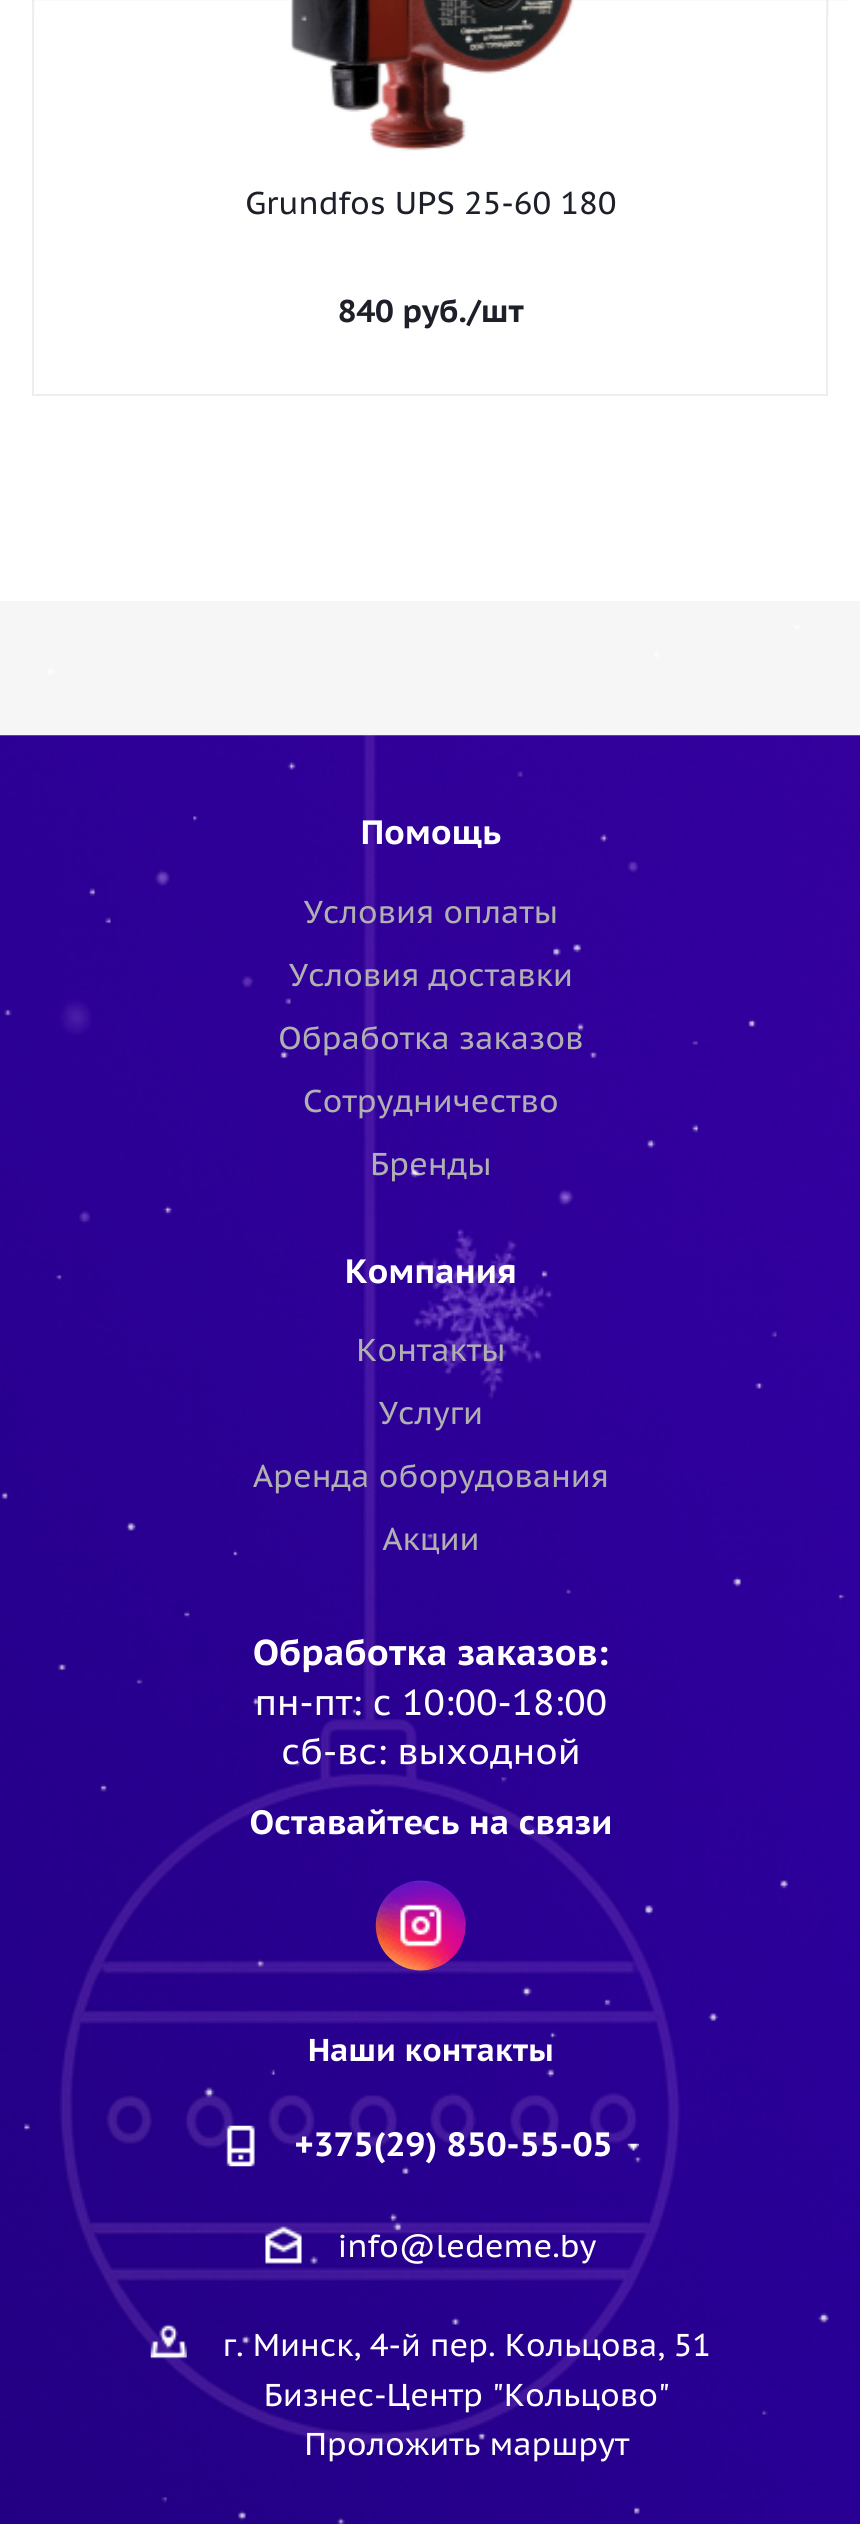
%!PS
<< /PageSize [860 2524] >> setpagedevice
/picture { 5 dict begin { /h /w /y /x /name } { exch def } forall
  gsave x y translate w h scale
  w h 8 [w 0 0 h 0 0] name (r) file false 3 colorimage grestore end } def
0 2524 translate 1 -1 scale
4 setmiterlimit
0.965 0.965 0.969 setrgbcolor
0 0 860 2524 rectfill
1 setgray
0 0 860 601 rectfill
0.933 setgray
2 setlinewidth
33 -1 794 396 rectstroke
(img2.rgb) 290 0 284 151 picture
/PTSansCaption-Regular [31.5 0 0 -31.5 0 0] selectfont
0.114 0.125 0.161 setrgbcolor
245 214 moveto (Grundfos UPS 25-60 180) show
/PTSansCaption-Bold [31.5 0 0 -31.5 0 0] selectfont
338 322 moveto (840 руб./шт) show
gsave
11 0 840 477 rectclip
0.933 setgray
827 -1 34 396 rectstroke
grestore
1 setgray
828 394 23 2 rectfill
(img3.rgb) 0 735 860 1789 picture
/PTSansCaption-Bold [33.75 0 0 -33.75 0 0] selectfont
361 844 moveto (Помощь) show
/PTSansCaption-Regular [31.5 0 0 -31.5 0 0] selectfont
0.69 setgray
304 923 moveto (Условия оплаты) show
289 986 moveto (Условия доставки) show
278 1049 moveto (Обработка заказов) show
303 1112 moveto (Сотрудничество) show
370 1175 moveto (Бренды) show
/PTSansCaption-Bold [33.75 0 0 -33.75 0 0] selectfont
1 setgray
345 1283 moveto (Компания) show
/PTSansCaption-Regular [31.5 0 0 -31.5 0 0] selectfont
0.69 setgray
356 1361 moveto (Контакты) show
379 1424 moveto (Услуги) show
253 1487 moveto (Аренда оборудования) show
382 1550 moveto (Акции) show
/PTSansCaption-Bold [36 0 0 -36 0 0] selectfont
1 setgray
253 1665 moveto (Обработка заказов:) show
/PTSansCaption-Regular [36 0 0 -36 0 0] selectfont
255 1715 moveto (пн-пт: с 10:00-18:00) show
281 1764 moveto (сб-вс: выходной) show
/PTSansCaption-Bold [33.75 0 0 -33.75 0 0] selectfont
250 1834 moveto (Оставайтесь на связи) show
(img4.rgb) 375 1880 91 91 picture
/PTSansCaption-Bold [31.5 0 0 -31.5 0 0] selectfont
308 2061 moveto (Наши контакты) show
(img5.rgb) 226 2125 29 42 picture
/PTSansCaption-Bold [33.75 0 0 -33.75 0 0] selectfont
295 2156 moveto (+375\(29\) 850-55-05) show
(img6.rgb) 627 2143 12 8 picture
(img7.rgb) 265 2226 37 38 picture
/PTSansCaption-Regular [31.5 0 0 -31.5 0 0] selectfont
337 2257 moveto (info@ledeme.by) show
(img8.rgb) 150 2324 37 35 picture
223 2356 moveto (г. Минск, 4-й пер. Кольцова, 51) show
264 2406 moveto (Бизнес-Центр "Кольцово") show
304 2455 moveto (Проложить маршрут) show
(img1.rgb) 1 15 844 2509 picture
showpage
